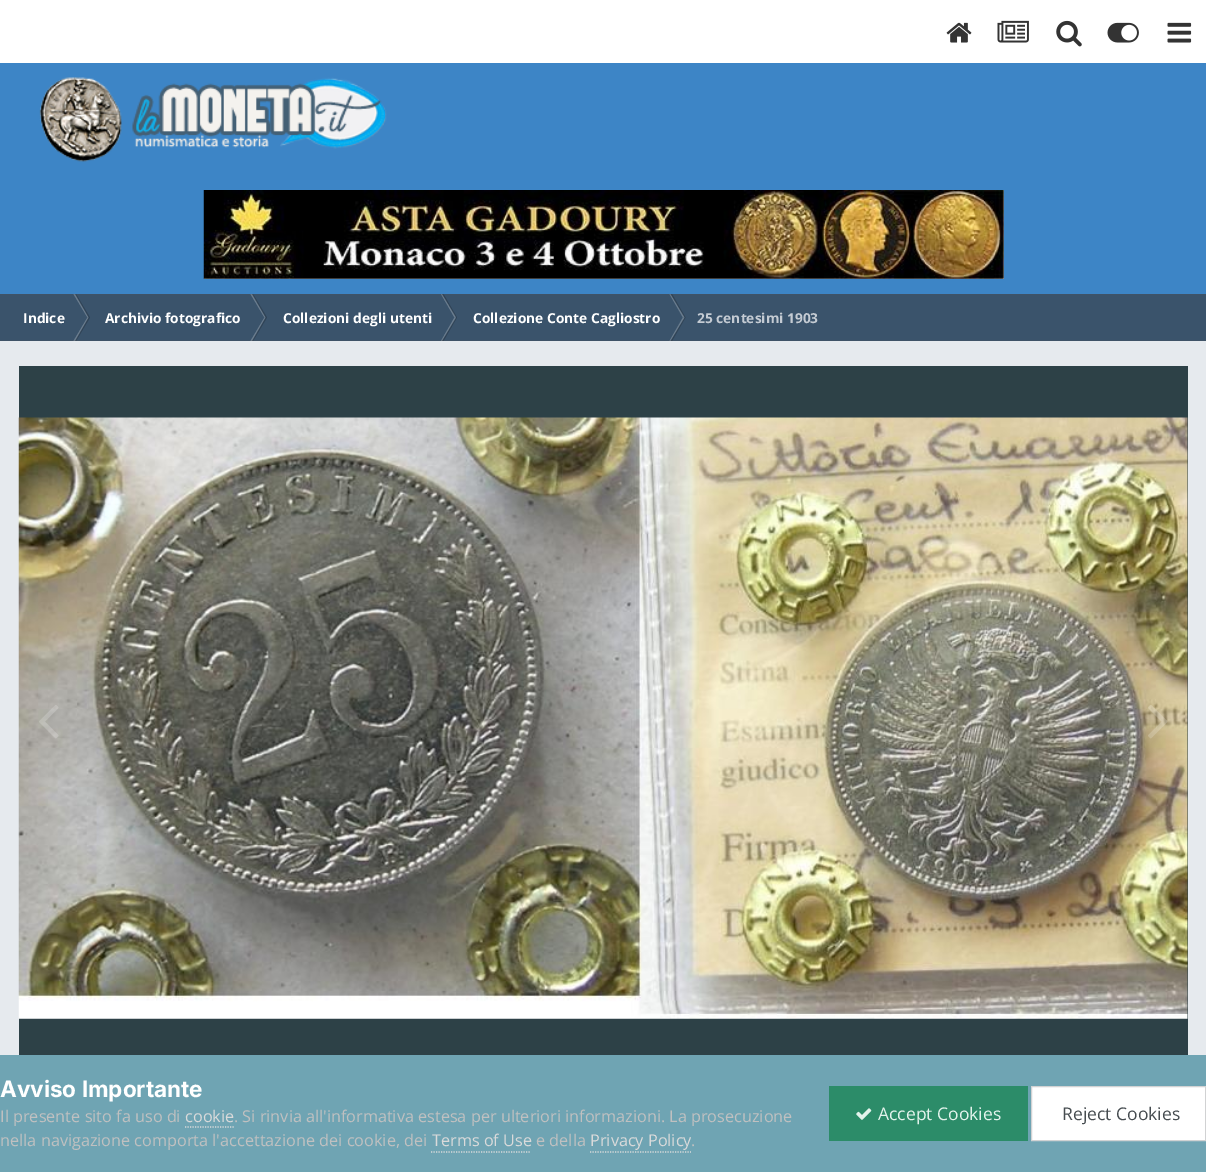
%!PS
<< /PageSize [1206 1172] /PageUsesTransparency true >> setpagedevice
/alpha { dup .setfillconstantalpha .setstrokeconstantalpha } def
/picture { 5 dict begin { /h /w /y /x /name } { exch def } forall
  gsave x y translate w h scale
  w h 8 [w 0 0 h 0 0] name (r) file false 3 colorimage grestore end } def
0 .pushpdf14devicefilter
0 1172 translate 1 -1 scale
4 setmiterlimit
0.902 0.918 0.933 setrgbcolor
0 0 1206 1172 rectfill
1 setgray
0 0 1206 63 rectfill
(img1.rgb) 946 22 26 21 picture
(img2.rgb) 997 20 32 23 picture
(img3.rgb) 1056 20 26 27 picture
(img4.rgb) 1107 22 32 21 picture
(img5.rgb) 1167 22 25 21 picture
0.239 0.522 0.776 setrgbcolor
0 63 1206 231 rectfill
(img6.rgb) 39 77 348 85 picture
0.98 setgray
204 190 800 89 rectfill
(img7.rgb) 203 190 801 89 picture
0.227 0.325 0.42 setrgbcolor
0 294 1206 47 rectfill
0.42 0.494 0.565 setrgbcolor
newpath 73.5 294 moveto 75 294 lineto 88.5 317.5 lineto 87.5 317.5 lineto closepath fill
0.2 alpha
0 setgray
newpath 75 294 moveto 76 294 lineto 90 317.5 lineto 88.5 317.5 lineto closepath fill
1 alpha
0.42 0.494 0.565 setrgbcolor
newpath 250.5 294 moveto 252 294 lineto 265.5 317.5 lineto 264.5 317.5 lineto closepath fill
0.2 alpha
0 setgray
newpath 252 294 moveto 253 294 lineto 267 317.5 lineto 265.5 317.5 lineto closepath fill
1 alpha
0.42 0.494 0.565 setrgbcolor
newpath 441 294 moveto 442 294 lineto 456 317.5 lineto 454.5 317.5 lineto closepath fill
0.2 alpha
0 setgray
newpath 442 294 moveto 443.5 294 lineto 457 317.5 lineto 456 317.5 lineto closepath fill
1 alpha
0.42 0.494 0.565 setrgbcolor
newpath 669.5 294 moveto 670.5 294 lineto 684.5 317.5 lineto 683 317.5 lineto closepath fill
0.2 alpha
0 setgray
newpath 670.5 294 moveto 672 294 lineto 685.5 317.5 lineto 684.5 317.5 lineto closepath fill
0.333 setgray
0 294 1206 1 rectfill
1 alpha
0.42 0.494 0.565 setrgbcolor
newpath 73.5 341 moveto 75 341 lineto 88.5 317.5 lineto 87.5 317.5 lineto closepath fill
0.2 alpha
0 setgray
newpath 75 341 moveto 76 341 lineto 90 317.5 lineto 88.5 317.5 lineto closepath fill
1 alpha
0.42 0.494 0.565 setrgbcolor
newpath 250.5 341 moveto 252 341 lineto 265.5 317.5 lineto 264.5 317.5 lineto closepath fill
0.2 alpha
0 setgray
newpath 252 341 moveto 253 341 lineto 267 317.5 lineto 265.5 317.5 lineto closepath fill
1 alpha
0.42 0.494 0.565 setrgbcolor
newpath 441 341 moveto 442 341 lineto 456 317.5 lineto 454.5 317.5 lineto closepath fill
0.2 alpha
0 setgray
newpath 442 341 moveto 443.5 341 lineto 457 317.5 lineto 456 317.5 lineto closepath fill
1 alpha
0.42 0.494 0.565 setrgbcolor
newpath 669.5 341 moveto 670.5 341 lineto 684.5 317.5 lineto 683 317.5 lineto closepath fill
0.2 alpha
0 setgray
newpath 670.5 341 moveto 672 341 lineto 685.5 317.5 lineto 684.5 317.5 lineto closepath fill
0.333 setgray
0 340 1206 1 rectfill
/OpenSans-Bold [13.75 0 0 -13.75 0 0] selectfont
1 alpha
1 setgray
23 323 moveto (Indice) show
105 323 moveto (Archivio fotografico) show
283 323 moveto (Collezioni degli utenti) show
473 323 moveto (Collezione Conte Cagliostro) show
0.769 0.796 0.827 setrgbcolor
697 323 moveto (25 centesimi 1903) show
0.176 0.255 0.278 setrgbcolor
19 366 1169 689 rectfill
(img8.rgb) 18 417 1170 602 picture
(img9.rgb) 39 705 20 34 picture
(img10.rgb) 1148 705 20 34 picture
0.435 0.643 0.702 setrgbcolor
0 1055 1206 117 rectfill
/Inter-Bold [22.5 0 0 -22.5 0 0] selectfont
1 setgray
0 1097 moveto (Avviso Importante) show
/OpenSans-Regular [16.25 0 0 -16.25 0 0] selectfont
0.753 setgray
0 1122 moveto (Il presente sito fa uso di) show
0.855 setgray
185 1122 moveto (cookie) show
1.2 setlinewidth
[1.25 1.25] 0 setdash
newpath 185 1127 moveto 234 1127 lineto stroke
0.753 setgray
234 1122 moveto (. Si rinvia all'informativa estesa per ulteriori informazioni. La prosecuzione) show
0 1146 moveto (nella navigazione comporta l'accettazione dei cookie, dei) show
0.855 setgray
432 1146 moveto (Terms of Use) show
newpath 431 1152 moveto 531 1152 lineto stroke
0.753 setgray
536 1146 moveto (e della) show
0.855 setgray
590 1146 moveto (Privacy Policy) show
newpath 590 1152 moveto 691 1152 lineto stroke
0.753 setgray
691 1146 moveto (.) show
0.173 0.549 0.412 setrgbcolor
829 1086 199 55 rectfill
(img11.rgb) 856 1108 16 12 picture
/OpenSans-Regular [17.5 0 0 -17.5 0 0] selectfont
0.89 0.953 0.925 setrgbcolor
878 1120 moveto (Accept Cookies) show
1 setgray
newpath 1031.5 1086.5 moveto 1205.5 1086.5 lineto 1205.5 1140.5 lineto 1031.5 1140.5 lineto closepath gsave fill grestore
0.82 0.824 0.827 setrgbcolor
1 setlinewidth
[] 0 setdash
stroke
0.275 0.298 0.314 setrgbcolor
1062 1120 moveto (Reject Cookies) show
.poppdf14devicefilter showpage
